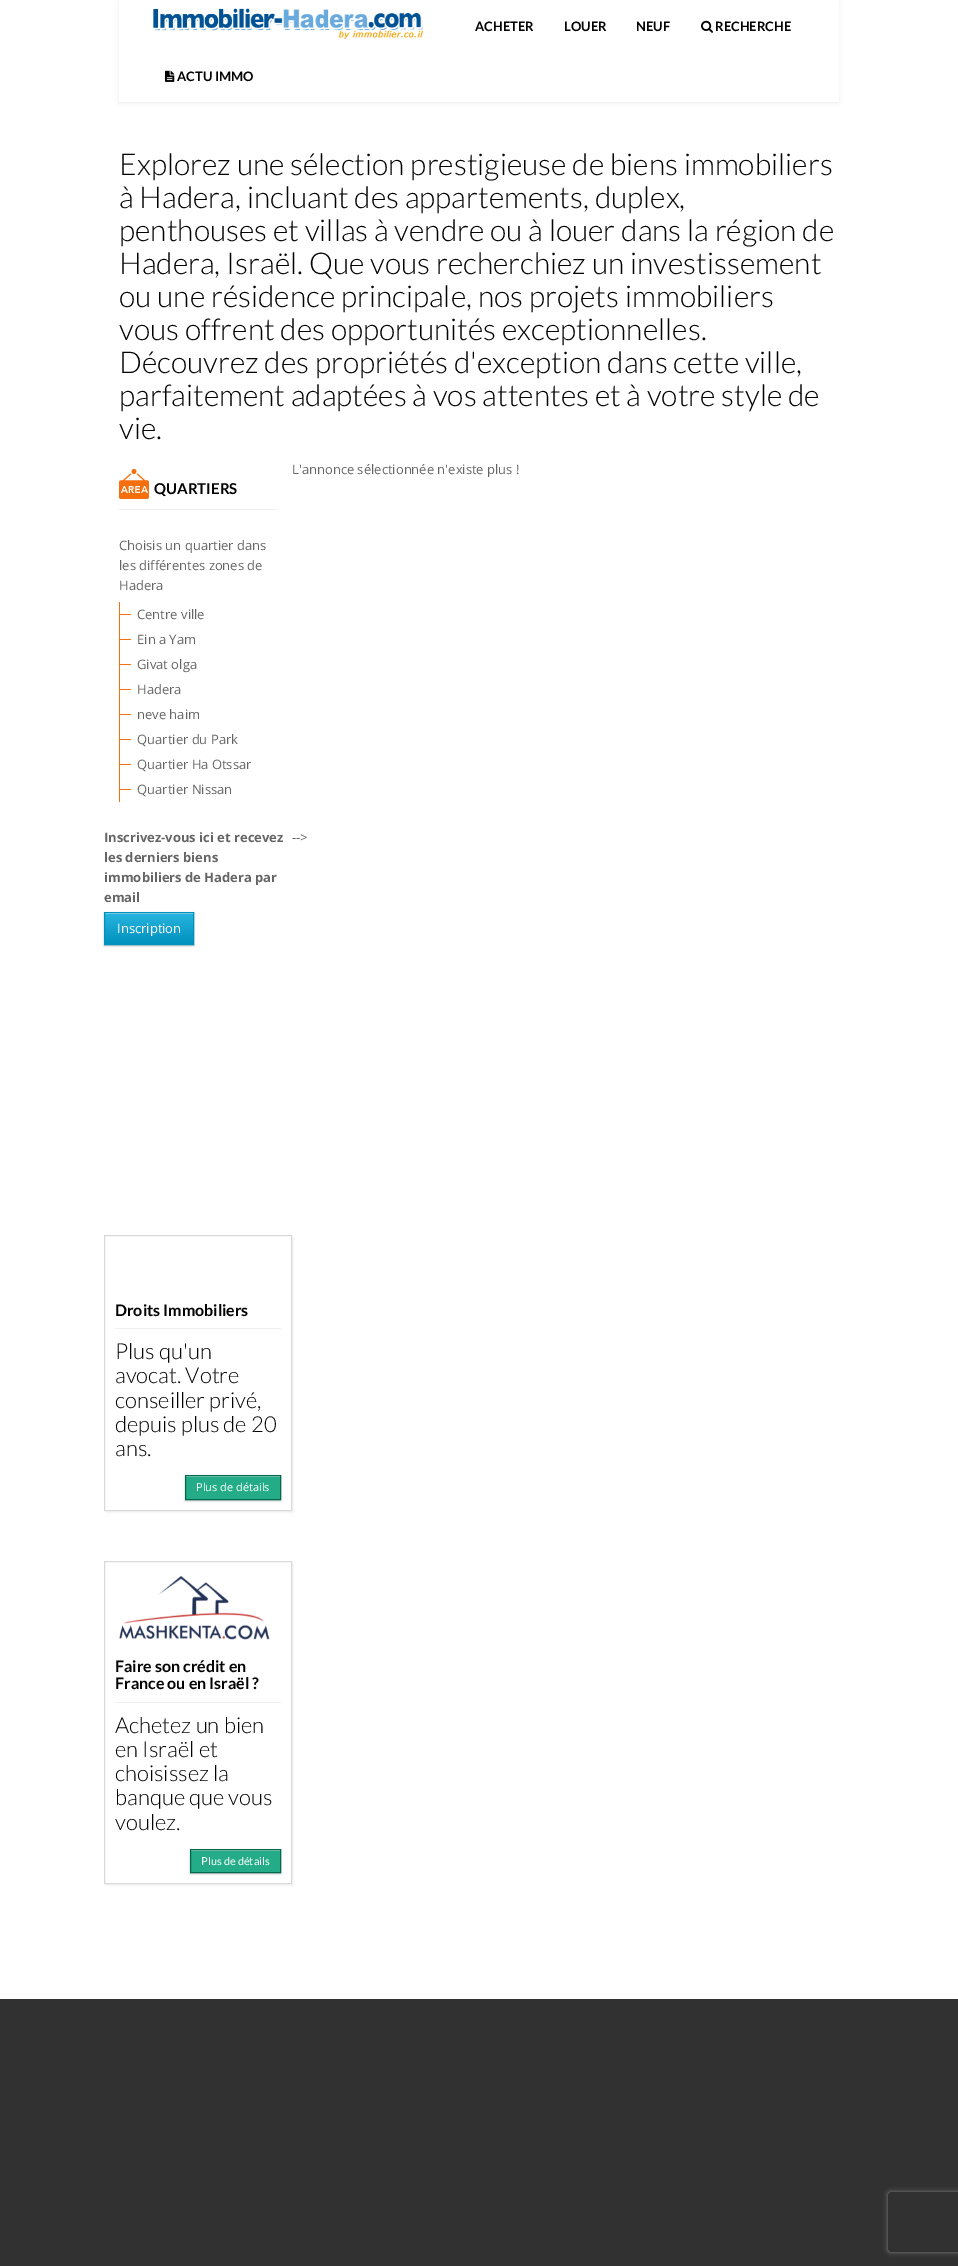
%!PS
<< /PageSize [958 2266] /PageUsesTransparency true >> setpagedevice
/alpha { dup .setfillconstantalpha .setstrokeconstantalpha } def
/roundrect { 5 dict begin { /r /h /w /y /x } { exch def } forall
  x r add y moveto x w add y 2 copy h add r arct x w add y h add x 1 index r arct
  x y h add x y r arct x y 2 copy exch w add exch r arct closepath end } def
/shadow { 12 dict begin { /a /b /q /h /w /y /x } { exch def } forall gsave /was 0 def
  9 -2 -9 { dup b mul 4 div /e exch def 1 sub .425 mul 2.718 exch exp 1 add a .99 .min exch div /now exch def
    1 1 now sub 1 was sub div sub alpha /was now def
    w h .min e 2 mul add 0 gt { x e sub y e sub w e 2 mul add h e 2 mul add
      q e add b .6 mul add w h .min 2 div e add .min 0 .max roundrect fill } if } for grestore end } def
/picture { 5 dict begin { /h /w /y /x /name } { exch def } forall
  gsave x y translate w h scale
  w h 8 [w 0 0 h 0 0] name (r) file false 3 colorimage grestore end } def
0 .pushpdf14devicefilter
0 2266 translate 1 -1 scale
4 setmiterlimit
1 setgray
0 0 958 2266 rectfill
gsave
newpath 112 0 moveto 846 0 lineto 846 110 lineto 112 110 lineto closepath 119 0 moveto 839 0 lineto 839 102 lineto 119 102 lineto closepath eoclip newpath
0 setgray
119 1 720 102 0 2 0.07 shadow
grestore
(img1.rgb) 153 8 271 31 picture
/Lato-Bold [13 0 0 -13 0 0] selectfont
0.004 setgray
475 31 moveto (ACHETER) show
564 31 moveto (LOUER) show
636 31 moveto (NEUF) show
(img2.rgb) 701 20 12 13 picture
715 31 moveto (RECHERCHE) show
(img3.rgb) 165 70 10 12 picture
177 81 moveto (ACTU IMMO) show
/Lato-Light [30 0 0 -30 0 0] selectfont
119 175 moveto (Explorez une sélection prestigieuse de biens immobiliers) show
119 208 moveto (à Hadera, incluant des appartements, duplex,) show
119 241 moveto (penthouses et villas à vendre ou à louer dans la région de) show
119 274 moveto (Hadera, Israël. Que vous recherchiez un investissement) show
119 307 moveto (ou une résidence principale, nos projets immobiliers) show
119 340 moveto (vous offrent des opportunités exceptionnelles.) show
119 373 moveto (Découvrez des propriétés d'exception dans cette ville,) show
119 406 moveto (parfaitement adaptées à vos attentes et à votre style de) show
119 439 moveto (vie.) show
/OpenSans-Regular [13 0 0 -13 0 0] selectfont
0.396 setgray
292 474 moveto (L'annonce sélectionnée n'existe plus !) show
0.937 setgray
119 509 158 1 rectfill
(img4.rgb) 119 469 30 30 picture
/Lato-Bold [15 0 0 -15 0 0] selectfont
0.004 setgray
154 494 moveto (QUARTIERS) show
/OpenSans-Regular [13 0 0 -13 0 0] selectfont
0.396 setgray
119 550 moveto (Choisis un quartier dans) show
119 570 moveto (les différentes zones de) show
119 590 moveto (Hadera) show
0.965 0.439 0.055 setrgbcolor
119 602 1 200 rectfill
120 614 11 1 rectfill
0.396 setgray
137 619 moveto (Centre ville) show
0.965 0.439 0.055 setrgbcolor
120 639 11 1 rectfill
0.396 setgray
137 644 moveto (Ein a Yam) show
0.965 0.439 0.055 setrgbcolor
120 664 11 1 rectfill
0.396 setgray
137 669 moveto (Givat olga) show
0.965 0.439 0.055 setrgbcolor
120 689 11 1 rectfill
0.396 setgray
137 694 moveto (Hadera) show
0.965 0.439 0.055 setrgbcolor
120 714 11 1 rectfill
0.396 setgray
137 719 moveto (neve haim) show
0.965 0.439 0.055 setrgbcolor
120 739 11 1 rectfill
0.396 setgray
137 744 moveto (Quartier du Park) show
0.965 0.439 0.055 setrgbcolor
120 764 11 1 rectfill
0.396 setgray
137 769 moveto (Quartier Ha Otssar) show
0.965 0.439 0.055 setrgbcolor
120 789 11 1 rectfill
0.396 setgray
137 794 moveto (Quartier Nissan) show
/OpenSans-Bold [13 0 0 -13 0 0] selectfont
104 842 moveto (Inscrivez-vous ici et recevez) show
104 862 moveto (les derniers biens) show
104 882 moveto (immobiliers de Hadera par) show
104 902 moveto (email) show
0 setgray
104 913 90 33 0 1 0.25 shadow
gsave newpath 105 914 moveto 193 914 lineto 193 944 lineto 105 944 lineto closepath clip newpath
<< /ShadingType 2 /ColorSpace /DeviceRGB /Coords [149 913 149 944] /Extend [true true] /Function << /FunctionType 2 /Domain [0 1] /C0 [0.157 0.71 0.878] /C1 [0 0.569 0.741] /N 1 >> >> shfill grestore
0.576 0.855 0.937 setrgbcolor
105 913 88 1 rectfill
0 0.569 0.741 setrgbcolor
104.5 912.5 89 32 rectstroke
/OpenSans-Regular [13 0 0 -13 0 0] selectfont
1 setgray
117 933 moveto (Inscription) show
gsave
newpath 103 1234 moveto 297 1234 lineto 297 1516 lineto 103 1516 lineto closepath 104 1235 moveto 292 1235 lineto 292 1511 lineto 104 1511 lineto closepath eoclip newpath
0 setgray
106 1237 188 276 0 0.5 0.04 shadow
grestore
0.851 setgray
104.5 1235.5 187 275 rectstroke
0.937 setgray
115 1328 166 1 rectfill
/Lato-Bold [16 0 0 -16 0 0] selectfont
0.004 setgray
115 1316 moveto (Droits Immobiliers) show
/Lato-Light [22 0 0 -22 0 0] selectfont
115 1359 moveto (Plus qu'un) show
115 1383 moveto (avocat. Votre) show
115 1408 moveto (conseiller privé,) show
115 1432 moveto (depuis plus de 20) show
115 1456 moveto (ans.) show
0 setgray
185 1476 96 25 0 1 0.25 shadow
0.141 0.675 0.537 setrgbcolor
186 1477 94 22 rectfill
0.573 0.839 0.769 setrgbcolor
186 1476 94 1 rectfill
0.004 0.416 0.306 setrgbcolor
185.5 1475.5 95 24 rectstroke
/OpenSans-Regular [11 0 0 -11 0 0] selectfont
1 setgray
196 1491 moveto (Plus de détails) show
gsave
newpath 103 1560 moveto 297 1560 lineto 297 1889 lineto 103 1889 lineto closepath 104 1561 moveto 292 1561 lineto 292 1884 lineto 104 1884 lineto closepath eoclip newpath
0 setgray
106 1563 188 323 0 0.5 0.04 shadow
grestore
0.851 setgray
104.5 1561.5 187 322 rectstroke
(img5.rgb) 119 1575 151 65 picture
0.937 setgray
115 1702 166 1 rectfill
/Lato-Bold [16 0 0 -16 0 0] selectfont
0.004 setgray
115 1672 moveto (Faire son crédit en) show
115 1689 moveto (France ou en Israël ?) show
/Lato-Light [22 0 0 -22 0 0] selectfont
115 1733 moveto (Achetez un bien) show
115 1757 moveto (en Israël et) show
115 1781 moveto (choisissez la) show
115 1805 moveto (banque que vous) show
115 1830 moveto (voulez.) show
0 setgray
190 1850 91 24 0 1 0.25 shadow
0.141 0.675 0.537 setrgbcolor
191 1851 89 21 rectfill
0.573 0.839 0.769 setrgbcolor
191 1850 89 1 rectfill
0.004 0.416 0.306 setrgbcolor
190.5 1849.5 90 23 rectstroke
/Lato-Regular [11 0 0 -11 0 0] selectfont
1 setgray
201 1865 moveto (Plus de détails) show
/OpenSans-Regular [13 0 0 -13 0 0] selectfont
0.396 setgray
292 842 moveto (-->) show
0.192 setgray
0 1999 958 267 rectfill
gsave
newpath 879 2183 moveto 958 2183 lineto 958 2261 lineto 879 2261 lineto closepath 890 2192 moveto 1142 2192 lineto 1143 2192 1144 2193 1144 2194 curveto 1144 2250 lineto 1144 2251 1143 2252 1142 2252 curveto 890 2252 lineto 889 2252 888 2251 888 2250 curveto 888 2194 lineto 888 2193 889 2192 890 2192 curveto closepath eoclip newpath
0.502 setgray
888 2192 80 60 2 2.5 1 shadow
grestore
.poppdf14devicefilter showpage
